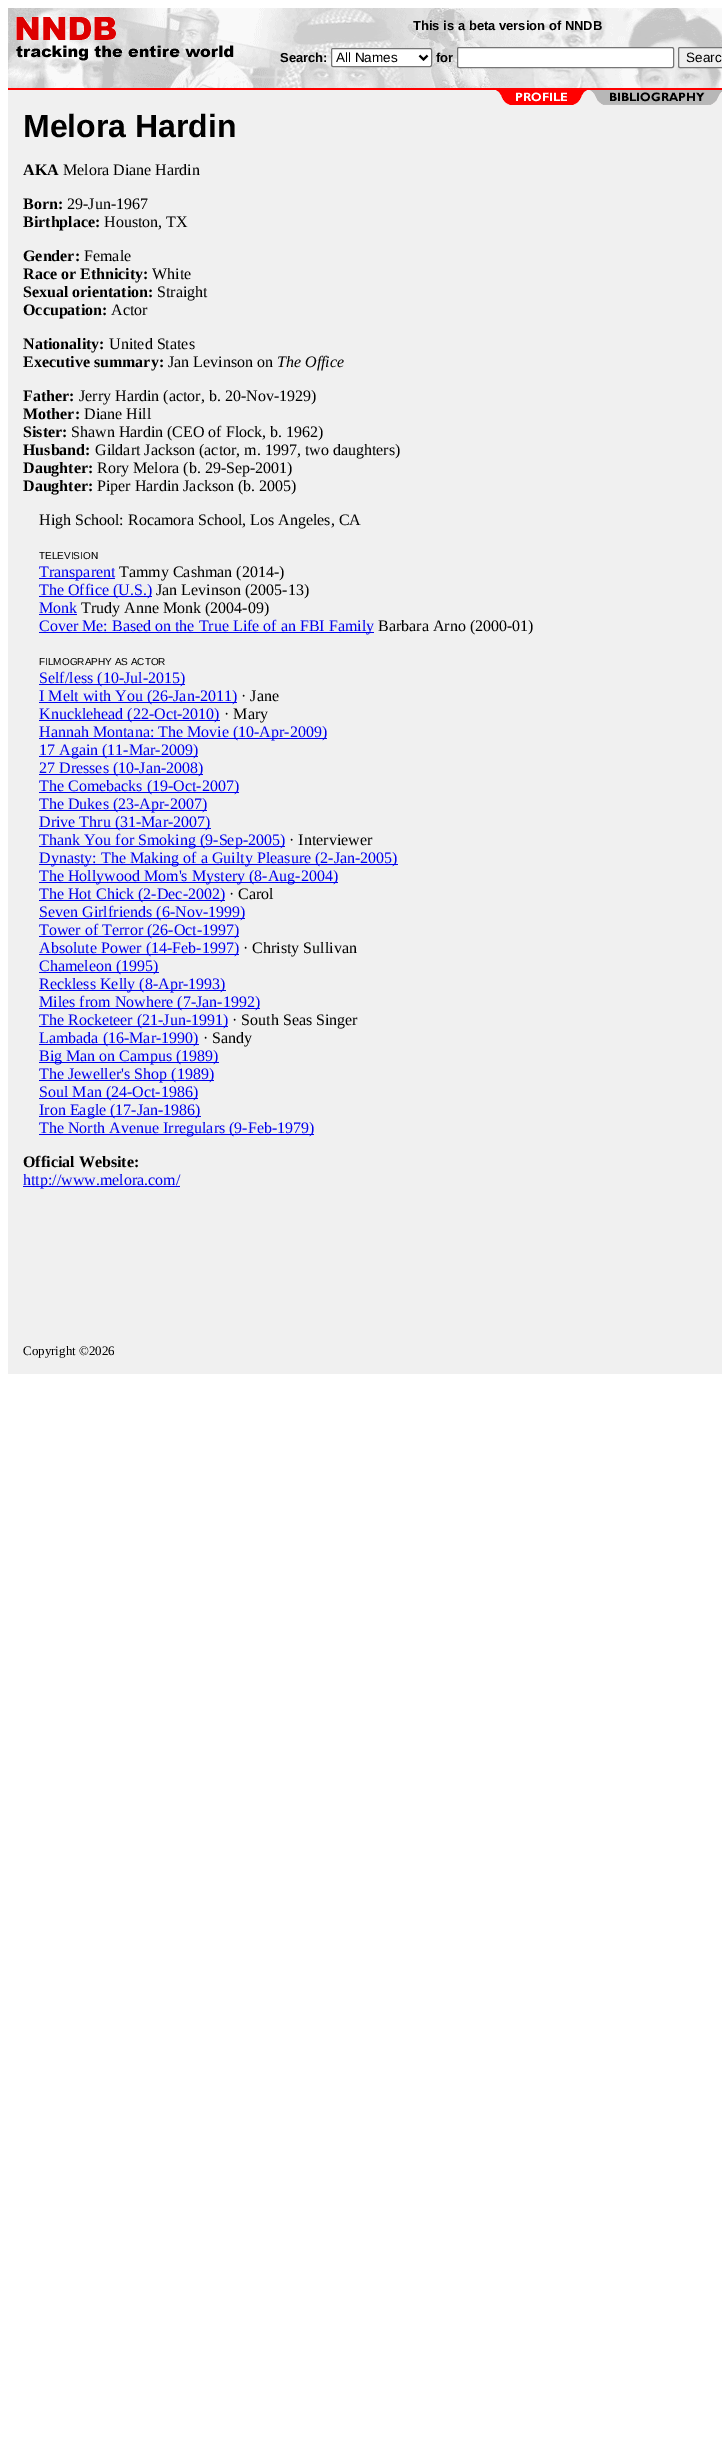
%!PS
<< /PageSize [722 2441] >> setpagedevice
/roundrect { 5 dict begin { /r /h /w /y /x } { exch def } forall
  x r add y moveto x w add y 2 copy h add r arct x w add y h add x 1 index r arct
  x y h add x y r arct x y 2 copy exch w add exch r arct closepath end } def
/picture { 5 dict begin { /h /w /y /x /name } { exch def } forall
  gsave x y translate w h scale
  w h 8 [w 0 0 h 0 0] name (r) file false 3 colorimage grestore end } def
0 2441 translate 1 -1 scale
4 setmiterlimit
1 setgray
0 0 722 2441 rectfill
(img1.rgb) 8 8 714 80 picture
(img2.rgb) 16 17 218 44 picture
/LiberationSans-Bold [13 0 0 -13 0 0] selectfont
0 setgray
413 30 moveto (This is a beta version of NNDB) show
280 62 moveto (Search:) show
1 setgray
331.5 48.5 100 18 1.5 roundrect gsave fill grestore
0.463 setgray
stroke
0 setgray
2 setlinewidth
newpath 419.5 55.5 moveto 423.5 59.5 lineto 427.5 55.5 lineto stroke
/LiberationSans-Regular [13.5 0 0 -13.5 0 0] selectfont
336 62 moveto (All Names) show
/LiberationSans-Bold [13 0 0 -13 0 0] selectfont
436 62 moveto (for) show
1 setgray
457.5 47.5 216 20 1.5 roundrect gsave fill grestore
0.463 setgray
1 setlinewidth
stroke
0.937 setgray
678.5 47.5 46 20 1.5 roundrect gsave fill grestore
0.463 setgray
stroke
/LiberationSans-Regular [13.5 0 0 -13.5 0 0] selectfont
0 setgray
686 62 moveto (Searc) show
1 0 0 setrgbcolor
8 88 714 2 rectfill
0.941 setgray
8 90 714 1284 rectfill
(img3.rgb) 496 90 226 15 picture
/LiberationSans-Bold [32 0 0 -32 0 0] selectfont
0 setgray
23 137 moveto (Melora Hardin) show
/LiberationSerif-Bold [16 0 0 -16 0 0] selectfont
23 175 moveto (AKA) show
/LiberationSerif-Regular [16 0 0 -16 0 0] selectfont
63 175 moveto (Melora Diane Hardin) show
/LiberationSerif-Bold [16 0 0 -16 0 0] selectfont
23 209 moveto (Born:) show
/LiberationSerif-Regular [16 0 0 -16 0 0] selectfont
67 209 moveto (29-Jun-1967) show
/LiberationSerif-Bold [16 0 0 -16 0 0] selectfont
23 227 moveto (Birthplace:) show
/LiberationSerif-Regular [16 0 0 -16 0 0] selectfont
104 227 moveto (Houston, TX) show
/LiberationSerif-Bold [16 0 0 -16 0 0] selectfont
23 261 moveto (Gender:) show
/LiberationSerif-Regular [16 0 0 -16 0 0] selectfont
84 261 moveto (Female) show
/LiberationSerif-Bold [16 0 0 -16 0 0] selectfont
23 279 moveto (Race or Ethnicity:) show
/LiberationSerif-Regular [16 0 0 -16 0 0] selectfont
152 279 moveto (White) show
/LiberationSerif-Bold [16 0 0 -16 0 0] selectfont
23 297 moveto (Sexual orientation:) show
/LiberationSerif-Regular [16 0 0 -16 0 0] selectfont
157 297 moveto (Straight) show
/LiberationSerif-Bold [16 0 0 -16 0 0] selectfont
23 315 moveto (Occupation:) show
/LiberationSerif-Regular [16 0 0 -16 0 0] selectfont
111 315 moveto (Actor) show
/LiberationSerif-Bold [16 0 0 -16 0 0] selectfont
23 349 moveto (Nationality:) show
/LiberationSerif-Regular [16 0 0 -16 0 0] selectfont
109 349 moveto (United States) show
/LiberationSerif-Bold [16 0 0 -16 0 0] selectfont
23 367 moveto (Executive summary:) show
/LiberationSerif-Regular [16 0 0 -16 0 0] selectfont
168 367 moveto (Jan Levinson on) show
/LiberationSerif-Italic [16 0 0 -16 0 0] selectfont
277 367 moveto (The Office) show
/LiberationSerif-Bold [16 0 0 -16 0 0] selectfont
23 401 moveto (Father:) show
/LiberationSerif-Regular [16 0 0 -16 0 0] selectfont
79 401 moveto (Jerry Hardin \(actor, b. 20-Nov-1929\)) show
/LiberationSerif-Bold [16 0 0 -16 0 0] selectfont
23 419 moveto (Mother:) show
/LiberationSerif-Regular [16 0 0 -16 0 0] selectfont
84 419 moveto (Diane Hill) show
/LiberationSerif-Bold [16 0 0 -16 0 0] selectfont
23 437 moveto (Sister:) show
/LiberationSerif-Regular [16 0 0 -16 0 0] selectfont
71 437 moveto (Shawn Hardin \(CEO of Flock, b. 1962\)) show
/LiberationSerif-Bold [16 0 0 -16 0 0] selectfont
23 455 moveto (Husband:) show
/LiberationSerif-Regular [16 0 0 -16 0 0] selectfont
95 455 moveto (Gildart Jackson \(actor, m. 1997, two daughters\)) show
/LiberationSerif-Bold [16 0 0 -16 0 0] selectfont
23 473 moveto (Daughter:) show
/LiberationSerif-Regular [16 0 0 -16 0 0] selectfont
97 473 moveto (Rory Melora \(b. 29-Sep-2001\)) show
/LiberationSerif-Bold [16 0 0 -16 0 0] selectfont
23 491 moveto (Daughter:) show
/LiberationSerif-Regular [16 0 0 -16 0 0] selectfont
97 491 moveto (Piper Hardin Jackson \(b. 2005\)) show
39 525 moveto (High School: Rocamora School, Los Angeles, CA) show
/LiberationSans-Regular [10 0 0 -10 0 0] selectfont
39 559 moveto (TELEVISION) show
0 0 0.933 setrgbcolor
39 578 76 1 rectfill
/LiberationSerif-Regular [16 0 0 -16 0 0] selectfont
39 577 moveto (Transparent) show
0 setgray
119 577 moveto (Tammy Cashman \(2014-\)) show
0 0 0.933 setrgbcolor
39 596 113 1 rectfill
39 595 moveto (The Office \(U.S.\)) show
0 setgray
156 595 moveto (Jan Levinson \(2005-13\)) show
0 0 0.933 setrgbcolor
39 613 moveto (Monk) show
39 614 38 1 rectfill
0 setgray
81 613 moveto (Trudy Anne Monk \(2004-09\)) show
0 0 0.933 setrgbcolor
39 632 335 1 rectfill
39 631 moveto (Cover Me: Based on the True Life of an FBI Family) show
0 setgray
378 631 moveto (Barbara Arno \(2000-01\)) show
/LiberationSans-Regular [10 0 0 -10 0 0] selectfont
39 665 moveto (FILMOGRAPHY AS ACTOR) show
0 0 0.933 setrgbcolor
39 684 146 1 rectfill
/LiberationSerif-Regular [16 0 0 -16 0 0] selectfont
39 683 moveto (Self/less \(10-Jul-2015\)) show
39 702 198 1 rectfill
39 701 moveto (I Melt with You \(26-Jan-2011\)) show
0 setgray
241 701 moveto (· Jane) show
0 0 0.933 setrgbcolor
39 720 181 1 rectfill
39 719 moveto (Knucklehead \(22-Oct-2010\)) show
0 setgray
224 719 moveto (· Mary) show
0 0 0.933 setrgbcolor
39 738 288 1 rectfill
39 737 moveto (Hannah Montana: The Movie \(10-Apr-2009\)) show
39 756 159 1 rectfill
39 755 moveto (17 Again \(11-Mar-2009\)) show
39 774 164 1 rectfill
39 773 moveto (27 Dresses \(10-Jan-2008\)) show
39 792 200 1 rectfill
39 791 moveto (The Comebacks \(19-Oct-2007\)) show
39 810 168 1 rectfill
39 809 moveto (The Dukes \(23-Apr-2007\)) show
39 828 172 1 rectfill
39 827 moveto (Drive Thru \(31-Mar-2007\)) show
39 846 246 1 rectfill
39 845 moveto (Thank You for Smoking \(9-Sep-2005\)) show
0 setgray
289 845 moveto (· Interviewer) show
0 0 0.933 setrgbcolor
39 864 359 1 rectfill
39 863 moveto (Dynasty: The Making of a Guilty Pleasure \(2-Jan-2005\)) show
39 882 299 1 rectfill
39 881 moveto (The Hollywood Mom's Mystery \(8-Aug-2004\)) show
39 900 186 1 rectfill
39 899 moveto (The Hot Chick \(2-Dec-2002\)) show
0 setgray
229 899 moveto (· Carol) show
0 0 0.933 setrgbcolor
39 918 206 1 rectfill
39 917 moveto (Seven Girlfriends \(6-Nov-1999\)) show
39 936 200 1 rectfill
39 935 moveto (Tower of Terror \(26-Oct-1997\)) show
39 954 200 1 rectfill
39 953 moveto (Absolute Power \(14-Feb-1997\)) show
0 setgray
243 953 moveto (· Christy Sullivan) show
0 0 0.933 setrgbcolor
39 972 120 1 rectfill
39 971 moveto (Chameleon \(1995\)) show
39 990 187 1 rectfill
39 989 moveto (Reckless Kelly \(8-Apr-1993\)) show
39 1008 221 1 rectfill
39 1007 moveto (Miles from Nowhere \(7-Jan-1992\)) show
39 1026 189 1 rectfill
39 1025 moveto (The Rocketeer \(21-Jun-1991\)) show
0 setgray
232 1025 moveto (· South Seas Singer) show
0 0 0.933 setrgbcolor
39 1044 160 1 rectfill
39 1043 moveto (Lambada \(16-Mar-1990\)) show
0 setgray
203 1043 moveto (· Sandy) show
0 0 0.933 setrgbcolor
39 1062 180 1 rectfill
39 1061 moveto (Big Man on Campus \(1989\)) show
39 1080 175 1 rectfill
39 1079 moveto (The Jeweller's Shop \(1989\)) show
39 1098 159 1 rectfill
39 1097 moveto (Soul Man \(24-Oct-1986\)) show
39 1116 162 1 rectfill
39 1115 moveto (Iron Eagle \(17-Jan-1986\)) show
39 1134 275 1 rectfill
39 1133 moveto (The North Avenue Irregulars \(9-Feb-1979\)) show
/LiberationSerif-Bold [16 0 0 -16 0 0] selectfont
0 setgray
23 1167 moveto (Official Website:) show
0 0 0.933 setrgbcolor
23 1186 157 1 rectfill
/LiberationSerif-Regular [16 0 0 -16 0 0] selectfont
23 1185 moveto (http://www.melora.com/) show
/LiberationSerif-Regular [13 0 0 -13 0 0] selectfont
0 setgray
23 1355 moveto (Copyright ©2026) show
showpage
